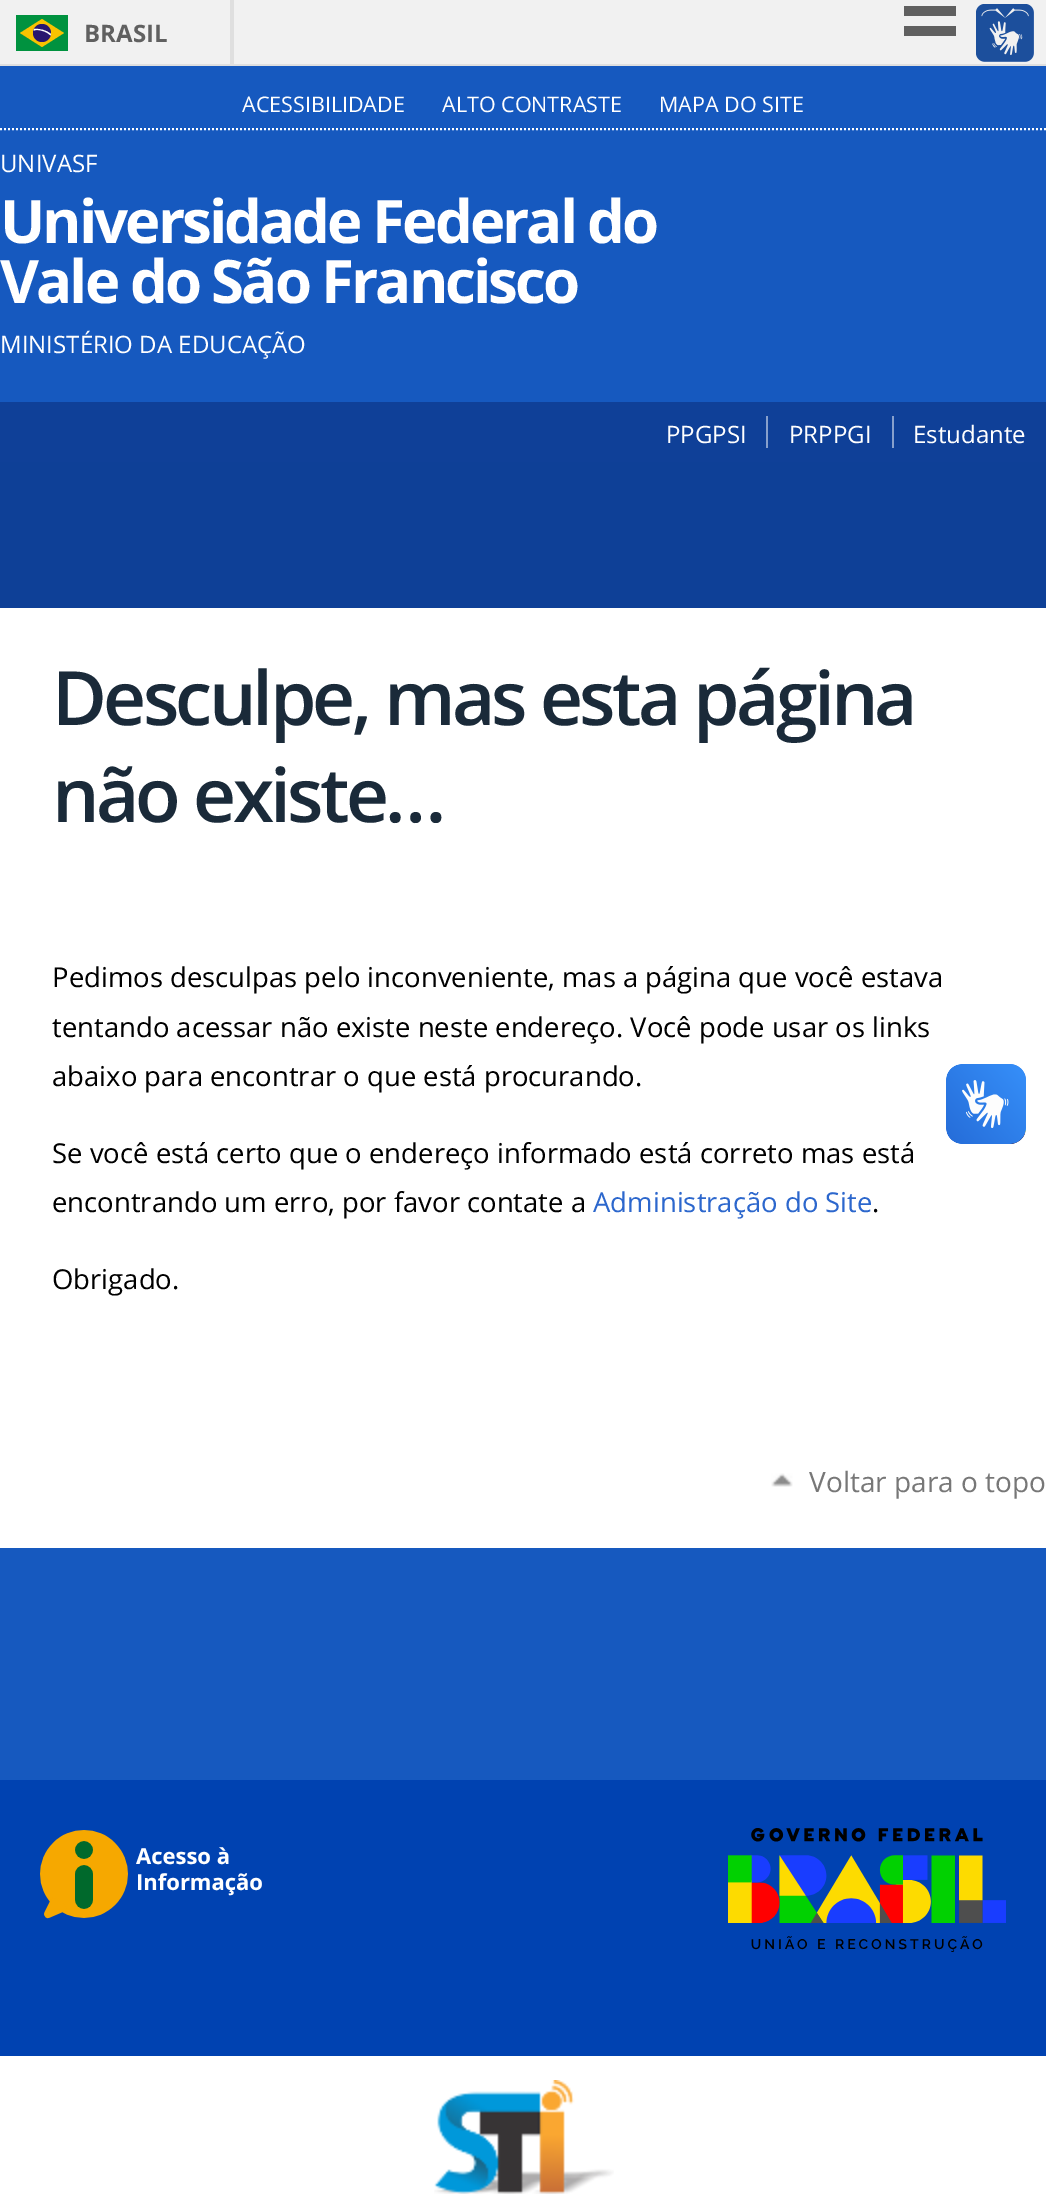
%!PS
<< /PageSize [1046 2208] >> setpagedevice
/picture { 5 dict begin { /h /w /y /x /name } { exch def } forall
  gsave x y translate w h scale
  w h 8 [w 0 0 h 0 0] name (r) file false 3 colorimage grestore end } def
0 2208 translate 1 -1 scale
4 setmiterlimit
1 setgray
0 0 1046 2208 rectfill
0.945 setgray
0 0 1046 64 rectfill
0.875 setgray
0 64 1046 2 rectfill
230 0 4 64 rectfill
0 0.573 0.247 setrgbcolor
16 15 52 36 rectfill
0.973 0.765 0 setrgbcolor
newpath 42 19 moveto 20 33 lineto 42 47 lineto 64 33 lineto closepath fill
0.157 0.086 0.435 setrgbcolor
newpath 42 33 9 0 360 arc closepath fill
1 setgray
newpath 36.5 30 moveto 42 30 47 32 50.5 35.5 curveto 51 34 lineto 46 30 40 28.5 34 29 curveto 33.5 30.5 lineto closepath fill
/OpenSans-Bold [24 0 0 -24 0 0] selectfont
0.376 setgray
84 42 moveto (BRASIL) show
904 6 52 10 rectfill
904 26 52 10 rectfill
(img1.rgb) 976 4 58 58 picture
0.086 0.349 0.749 setrgbcolor
0 66 1046 336 rectfill
1 setgray
2 setlinewidth
[2 2] 0 setdash
newpath 0 129 moveto 1046 129 lineto stroke
/OpenSans-Regular [21.5 0 0 -21.5 0 0] selectfont
242 112 moveto (ACESSIBILIDADE) show
442 112 moveto (ALTO CONTRASTE) show
659 112 moveto (MAPA DO SITE) show
/OpenSans-Regular [24 0 0 -24 0 0] selectfont
0 172 moveto (UNIVASF) show
/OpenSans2-Bold [60 0 0 -60 0 0] selectfont
0 243 moveto -3 0 (Universidade Federal do) ashow
0 303 moveto -3 0 (Vale do São Francisco) ashow
/OpenSans-Regular [24 0 0 -24 0 0] selectfont
0 353 moveto (MINISTÉRIO DA EDUCAÇÃO) show
0.059 0.251 0.596 setrgbcolor
0 402 1046 60 rectfill
1 setgray
666 443 moveto (PPGPSI) show
0.529 0.627 0.8 setrgbcolor
766 416 2 32 rectfill
1 setgray
789 443 moveto (PRPPGI) show
0.529 0.627 0.8 setrgbcolor
892 416 2 32 rectfill
1 setgray
913 443 moveto (Estudante) show
0.055 0.251 0.592 setrgbcolor
0 462 1046 146 rectfill
/OpenSans-SemiBold [74.9 0 0 -74.9 0 0] selectfont
0.102 0.165 0.224 setrgbcolor
52 725 moveto -3.75 0 (Desculpe, mas esta página) ashow
52 822 moveto -3.75 0 (não existe…) ashow
/OpenSans-Regular [27.45 0 0 -27.45 0 0] selectfont
0 setgray
52 987 moveto (Pedimos desculpas pelo inconveniente, mas a página que você estava) show
52 1037 moveto (tentando acessar não existe neste endereço. Você pode usar os links) show
52 1086 moveto (abaixo para encontrar o que está procurando.) show
52 1163 moveto (Se você está certo que o endereço informado está correto mas está) show
52 1212 moveto (encontrando um erro, por favor contate a) show
0.173 0.404 0.804 setrgbcolor
593 1212 moveto (Administração do Site) show
0 setgray
872 1212 moveto (.) show
52 1289 moveto (Obrigado.) show
(img2.rgb) 771 1473 22 14 picture
/OpenSans-Regular [28 0 0 -28 0 0] selectfont
0.467 setgray
809 1492 moveto (Voltar para o topo) show
0.086 0.349 0.749 setrgbcolor
0 1548 1046 232 rectfill
0 0.259 0.694 setrgbcolor
0 1780 1046 276 rectfill
(img3.rgb) 40 1830 222 89 picture
(img4.rgb) 728 1828 278 124 picture
(img5.rgb) 434 2080 180 114 picture
(img6.rgb) 946 1064 80 80 picture
(img7.rgb) 946 1064 80 80 picture
showpage
